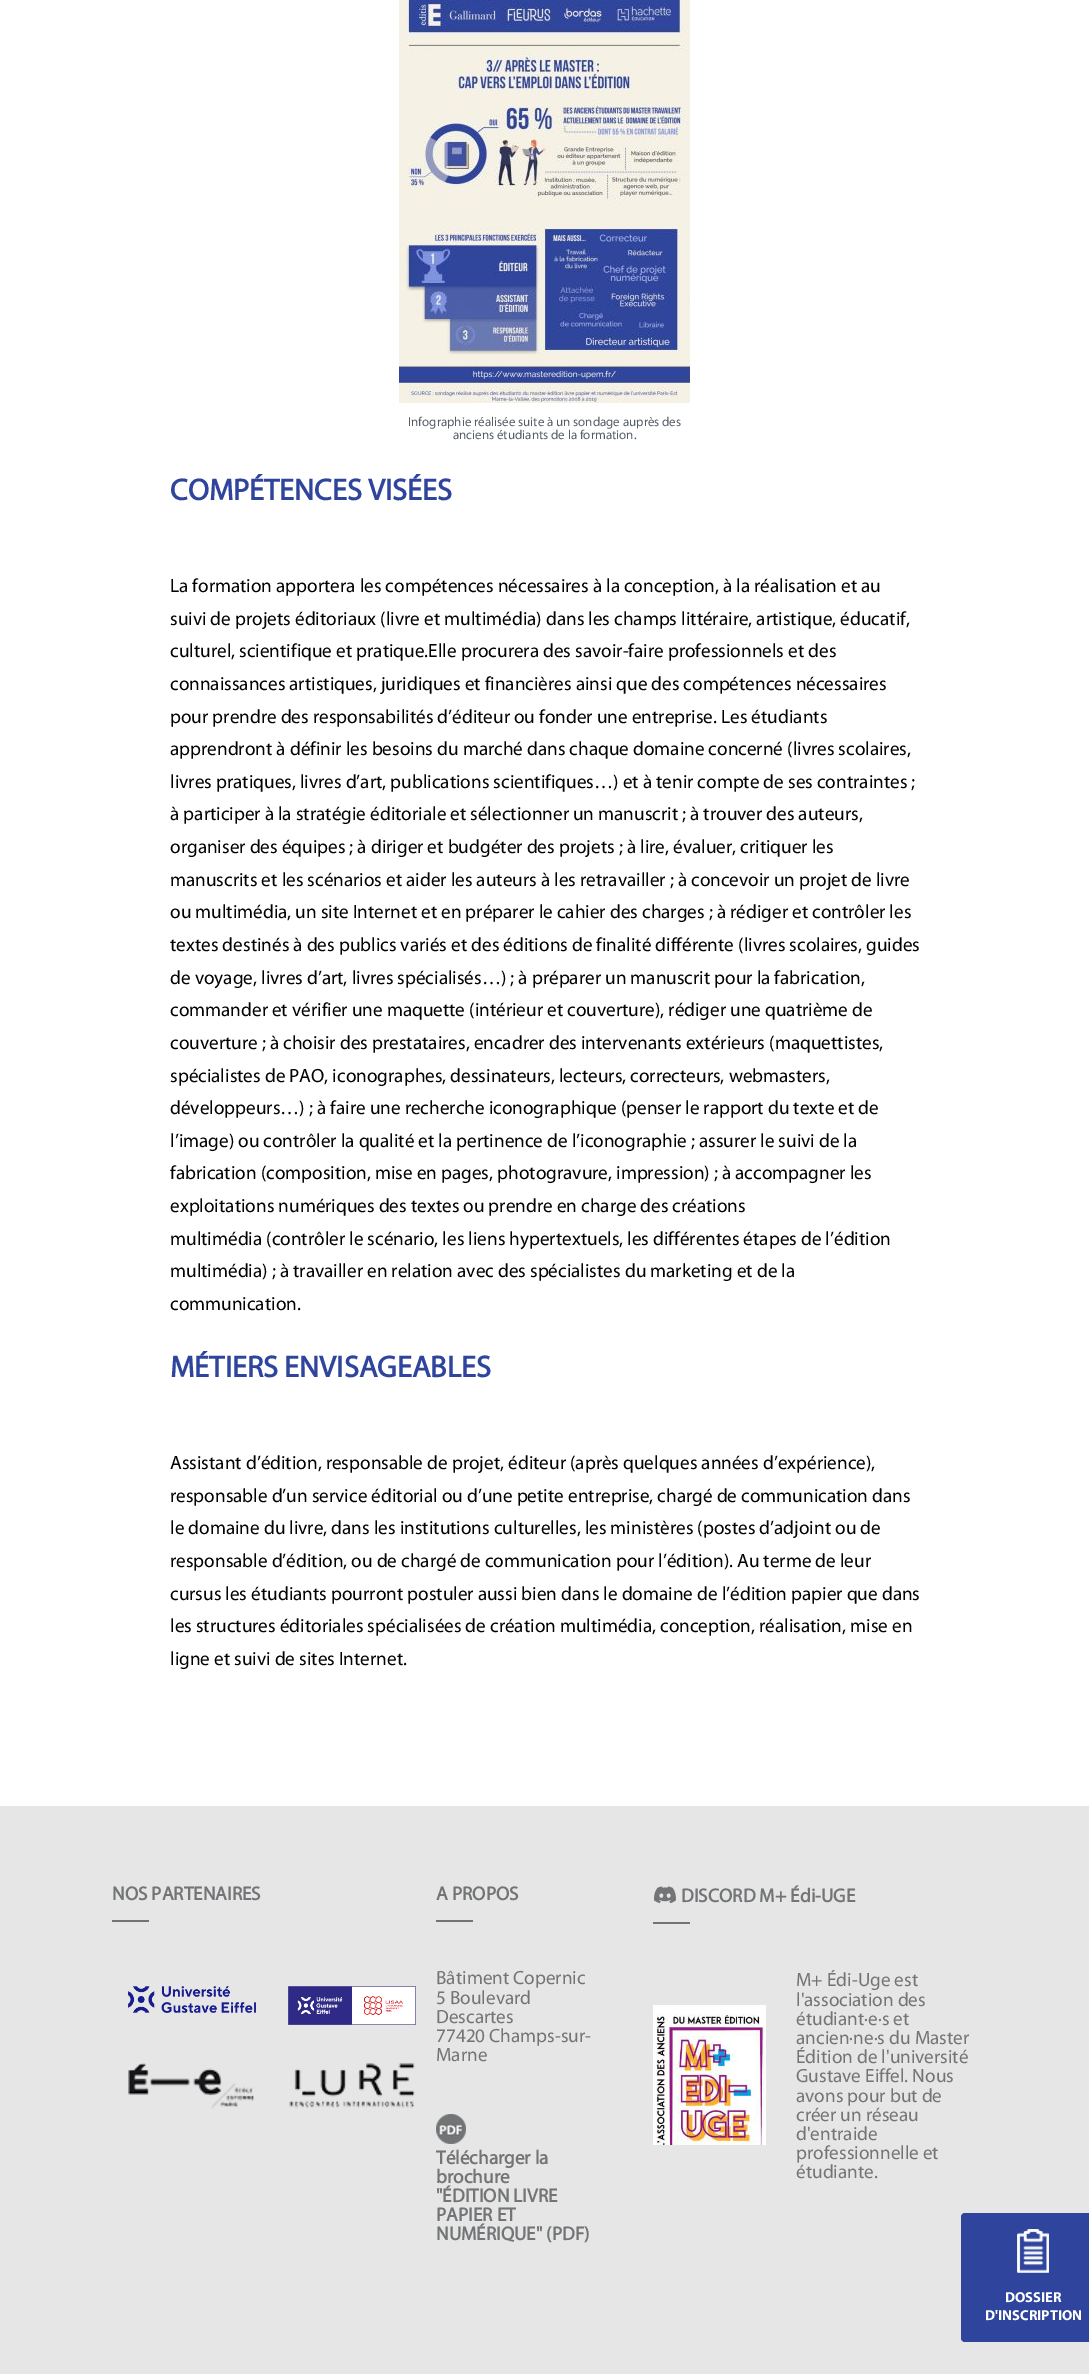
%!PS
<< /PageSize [1089 2374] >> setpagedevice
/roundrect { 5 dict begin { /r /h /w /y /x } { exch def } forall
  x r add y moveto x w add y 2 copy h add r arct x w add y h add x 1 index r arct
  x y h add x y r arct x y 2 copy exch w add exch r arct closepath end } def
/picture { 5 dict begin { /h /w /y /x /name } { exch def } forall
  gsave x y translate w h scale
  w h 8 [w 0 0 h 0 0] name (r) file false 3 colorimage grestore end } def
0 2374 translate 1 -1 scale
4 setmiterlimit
1 setgray
0 0 1089 2374 rectfill
(img1.rgb) 399 0 291 403 picture
/Myriad-Regular [13 0 0 -13 0 0] selectfont
0.333 0.365 0.4 setrgbcolor
408 426 moveto (Infographie réalisée suite à un sondage auprès des) show
453 439 moveto (anciens étudiants de la formation.) show
/Myriad-Bold [30.4 0 0 -30.4 0 0] selectfont
0.184 0.271 0.616 setrgbcolor
170 500 moveto (COMPÉTENCES VISÉES) show
/Myriad-Regular [19.2 0 0 -19.2 0 0] selectfont
0 setgray
170 592 moveto (La formation apportera les compétences nécessaires à la conception, à la réalisation et au) show
170 625 moveto (suivi de projets éditoriaux \(livre et multimédia\) dans les champs littéraire, artistique, éducatif,) show
170 657 moveto (culturel, scientifique et pratique.Elle procurera des savoir-faire professionnels et des) show
170 690 moveto (connaissances artistiques, juridiques et financières ainsi que des compétences nécessaires) show
170 723 moveto (pour prendre des responsabilités d’éditeur ou fonder une entreprise. Les étudiants) show
170 755 moveto (apprendront à définir les besoins du marché dans chaque domaine concerné \(livres scolaires,) show
170 788 moveto (livres pratiques, livres d’art, publications scientifiques…\) et à tenir compte de ses contraintes ;) show
170 820 moveto (à participer à la stratégie éditoriale et sélectionner un manuscrit ; à trouver des auteurs,) show
170 853 moveto (organiser des équipes ; à diriger et budgéter des projets ; à lire, évaluer, critiquer les) show
170 886 moveto (manuscrits et les scénarios et aider les auteurs à les retravailler ; à concevoir un projet de livre) show
170 918 moveto (ou multimédia, un site Internet et en préparer le cahier des charges ; à rédiger et contrôler les) show
170 951 moveto (textes destinés à des publics variés et des éditions de finalité différente \(livres scolaires, guides) show
170 984 moveto (de voyage, livres d’art, livres spécialisés…\) ; à préparer un manuscrit pour la fabrication,) show
170 1016 moveto (commander et vérifier une maquette \(intérieur et couverture\), rédiger une quatrième de) show
170 1049 moveto (couverture ; à choisir des prestataires, encadrer des intervenants extérieurs \(maquettistes,) show
170 1082 moveto (spécialistes de PAO, iconographes, dessinateurs, lecteurs, correcteurs, webmasters,) show
170 1114 moveto (développeurs…\) ; à faire une recherche iconographique \(penser le rapport du texte et de) show
170 1147 moveto (l’image\) ou contrôler la qualité et la pertinence de l’iconographie ; assurer le suivi de la) show
170 1179 moveto (fabrication \(composition, mise en pages, photogravure, impression\) ; à accompagner les) show
170 1212 moveto (exploitations numériques des textes ou prendre en charge des créations) show
170 1245 moveto (multimédia \(contrôler le scénario, les liens hypertextuels, les différentes étapes de l’édition) show
170 1277 moveto (multimédia\) ; à travailler en relation avec des spécialistes du marketing et de la) show
170 1310 moveto (communication.) show
/Myriad-Bold [30.4 0 0 -30.4 0 0] selectfont
0.184 0.271 0.616 setrgbcolor
170 1377 moveto (MÉTIERS ENVISAGEABLES) show
/Myriad-Regular [19.2 0 0 -19.2 0 0] selectfont
0 setgray
170 1469 moveto (Assistant d’édition, responsable de projet, éditeur \(après quelques années d’expérience\),) show
170 1502 moveto (responsable d’un service éditorial ou d’une petite entreprise, chargé de communication dans) show
170 1534 moveto (le domaine du livre, dans les institutions culturelles, les ministères \(postes d’adjoint ou de) show
170 1567 moveto (responsable d’édition, ou de chargé de communication pour l’édition\). Au terme de leur) show
170 1600 moveto (cursus les étudiants pourront postuler aussi bien dans le domaine de l’édition papier que dans) show
170 1632 moveto (les structures éditoriales spécialisées de création multimédia, conception, réalisation, mise en) show
170 1665 moveto (ligne et suivi de sites Internet.) show
0.902 setgray
0 1806 1089 568 rectfill
/Myriad-Bold [19.2 0 0 -19.2 0 0] selectfont
0.447 0.455 0.459 setrgbcolor
112 1900 moveto (NOS PARTENAIRES) show
0.443 0.451 0.459 setrgbcolor
112 1920 37 2 rectfill
(img2.rgb) 128 1986 128 27 picture
(img3.rgb) 288 1986 128 39 picture
(img4.rgb) 128 2063 126 46 picture
(img5.rgb) 289 2063 126 45 picture
0.447 0.455 0.459 setrgbcolor
436 1900 moveto (A PROPOS) show
0.443 0.451 0.459 setrgbcolor
436 1920 37 2 rectfill
/Myriad-Regular [19.2 0 0 -19.2 0 0] selectfont
0.447 0.455 0.459 setrgbcolor
436 1984 moveto (Bâtiment Copernic) show
436 2004 moveto (5 Boulevard) show
436 2023 moveto (Descartes) show
436 2042 moveto (77420 Champs-sur-) show
436 2061 moveto (Marne) show
(img6.rgb) 436 2114 30 30 picture
/Myriad-Bold [19.2 0 0 -19.2 0 0] selectfont
436 2164 moveto (Télécharger la) show
436 2183 moveto (brochure) show
436 2202 moveto ("ÉDITION LIVRE) show
436 2221 moveto (PAPIER ET) show
436 2240 moveto (NUMÉRIQUE" \(PDF\)) show
(img7.rgb) 654 1886 22 18 picture
681 1902 moveto (DISCORD M+ Édi-UGE) show
0.443 0.451 0.459 setrgbcolor
653 1922 37 2 rectfill
(img8.rgb) 653 2005 113 140 picture
/Myriad-Regular [19.2 0 0 -19.2 0 0] selectfont
0.447 0.455 0.459 setrgbcolor
796 1986 moveto (M+ Édi-Uge est) show
796 2006 moveto (l'association des) show
796 2025 moveto (étudiant·e·s et) show
796 2044 moveto (ancien·ne·s du Master) show
796 2063 moveto (Édition de l'université) show
796 2082 moveto (Gustave Eiffel. Nous) show
796 2102 moveto (avons pour but de) show
796 2121 moveto (créer un réseau) show
796 2140 moveto (d'entraide) show
796 2159 moveto (professionnelle et) show
796 2178 moveto (étudiante.) show
0.184 0.271 0.616 setrgbcolor
961 2213 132 129 4 roundrect fill
(img9.rgb) 1017 2229 32 44 picture
/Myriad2-Bold [14.5 0 0 -14.5 0 0] selectfont
1 setgray
1005 2302 moveto (DOSSIER) show
985 2320 moveto (D'INSCRIPTION) show
showpage
